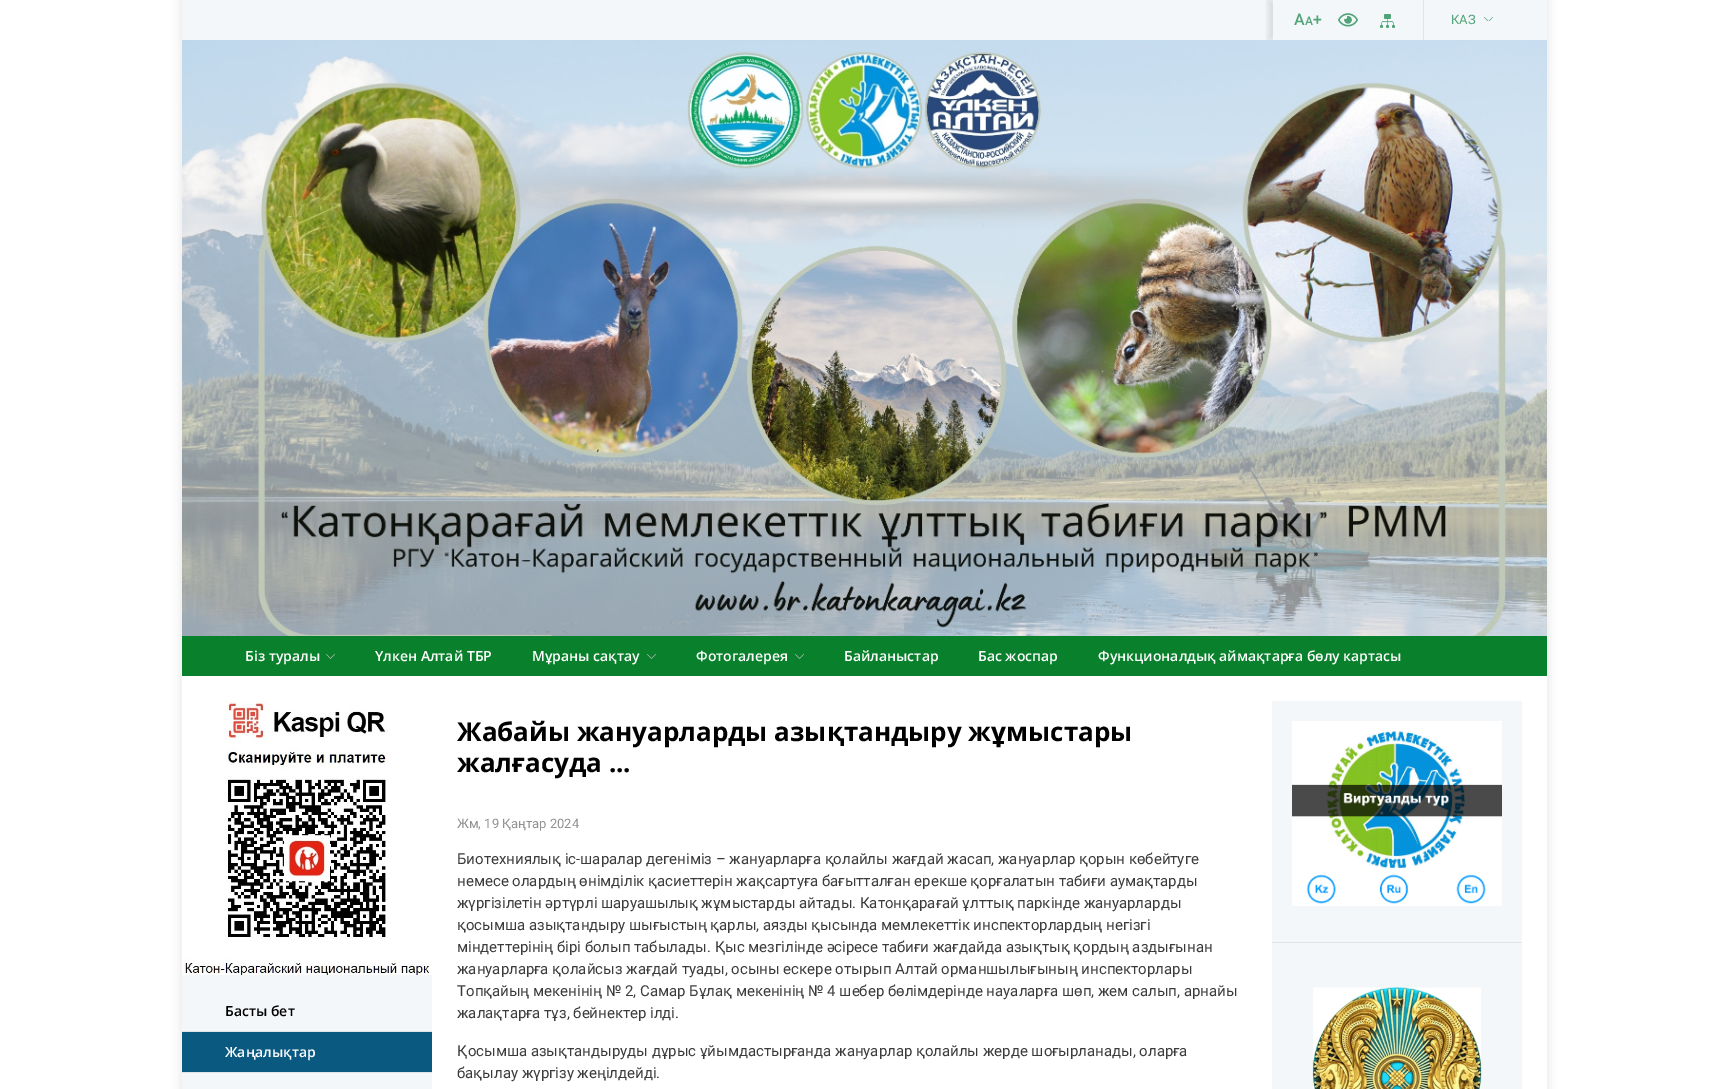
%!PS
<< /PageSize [1729 1089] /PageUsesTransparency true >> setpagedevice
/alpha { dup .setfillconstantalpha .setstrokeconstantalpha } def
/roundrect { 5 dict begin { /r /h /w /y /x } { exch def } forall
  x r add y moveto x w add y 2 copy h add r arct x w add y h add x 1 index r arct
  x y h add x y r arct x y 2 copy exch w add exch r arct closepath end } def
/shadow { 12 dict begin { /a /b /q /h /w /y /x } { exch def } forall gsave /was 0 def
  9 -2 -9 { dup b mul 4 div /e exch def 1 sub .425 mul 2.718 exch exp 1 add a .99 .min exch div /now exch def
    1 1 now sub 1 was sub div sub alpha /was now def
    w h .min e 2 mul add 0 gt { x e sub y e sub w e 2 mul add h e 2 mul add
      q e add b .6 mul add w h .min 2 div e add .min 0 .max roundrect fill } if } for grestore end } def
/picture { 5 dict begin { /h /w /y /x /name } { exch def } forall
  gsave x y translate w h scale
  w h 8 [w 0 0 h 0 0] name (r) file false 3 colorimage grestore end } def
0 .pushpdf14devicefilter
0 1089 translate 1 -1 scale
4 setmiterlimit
1 setgray
0 0 1729 1089 rectfill
gsave
newpath 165 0 moveto 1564 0 lineto 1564 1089 lineto 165 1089 lineto closepath 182 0 moveto 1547 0 lineto 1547 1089 lineto 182 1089 lineto closepath eoclip newpath
0 setgray
181 -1 1367 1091 0 5 0.1 shadow
grestore
0.957 0.969 0.976 setrgbcolor
182 0 1365 40 rectfill
gsave
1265 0 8 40 rectclip
0 setgray
1268 0 232 40 0 3 0.1 shadow
grestore
0.886 0.898 0.902 setrgbcolor
1423 0 1 40 rectfill
/Roboto-Medium [16 0 0 -16 0 0] selectfont
0.314 0.643 0.467 setrgbcolor
1294 25 moveto (A) show
/Roboto-Medium [12 0 0 -12 0 0] selectfont
1305 25 moveto (A) show
/Roboto-Medium [16 0 0 -16 0 0] selectfont
1313 25 moveto (+) show
(img1.rgb) 1338 13 20 14 picture
(img2.rgb) 1380 14 15 14 picture
/Roboto-Regular [13 0 0 -13 0 0] selectfont
1451 24 moveto (КАЗ) show
(img3.rgb) 1484 17 9 4 picture
(img4.rgb) 182 40 1365 596 picture
0.035 0.502 0.169 setrgbcolor
182 636 1365 40 rectfill
/OpenSans-SemiBold [14 0 0 -14 0 0] selectfont
1 setgray
245 661 moveto (Бiз туралы) show
(img5.rgb) 326 654 9 5 picture
375 661 moveto (Үлкен Алтай ТБР) show
532 661 moveto (Мұраны сақтау) show
(img5.rgb) 647 654 9 5 picture
696 661 moveto (Фотогалерея) show
(img5.rgb) 795 654 9 5 picture
844 661 moveto (Байланыстар) show
978 661 moveto (Бас жоспар) show
1098 661 moveto (Функционалдық аймақтарға бөлу картасы) show
0.957 0.969 0.976 setrgbcolor
182 975 250 114 rectfill
(img6.rgb) 182 701 250 274 picture
0.886 0.898 0.902 setrgbcolor
182 1031 250 1 rectfill
0 setgray
225 1016 moveto (Басты бет) show
0.886 0.898 0.902 setrgbcolor
182 1072 250 1 rectfill
0.039 0.349 0.506 setrgbcolor
182 1032 250 40 rectfill
1 setgray
225 1057 moveto (Жаңалықтар) show
/OpenSans-Bold [26 0 0 -26 0 0] selectfont
0 setgray
457 741 moveto (Жабайы жануарларды азықтандыру жұмыстары) show
457 772 moveto (жалғасуда ...) show
/Roboto-Regular [13 0 0 -13 0 0] selectfont
0.565 setgray
457 828 moveto (Жм, 19 Қаңтар 2024) show
/Roboto-Regular [15 0 0 -15 0 0] selectfont
0.231 setgray
457 864 moveto (Биотехниялық іс-шаралар дегеніміз – жануарларға қолайлы жағдай жасап, жануарлар қорын көбейтуге) show
457 886 moveto (немесе олардың өнімділік қасиеттерін жақсартуға бағытталған ерекше қорғалатын табиғи аумақтарды) show
457 908 moveto (жүргізілетін әртүрлі шаруашылық жұмыстарды айтады. Катонқарағай ұлттық паркінде жануарларды) show
457 930 moveto (қосымша азықтандыру шығыстың қарлы, аязды қысында мемлекеттік инспекторлардың негізгі) show
457 952 moveto (міндеттерінің бірі болып табылады. Қыс мезгілінде әсіресе табиғи жағдайда азықтық қордың аздығынан) show
457 974 moveto (жануарларға қолайсыз жағдай туады, осыны ескере отырып Алтай орманшылығының инспекторлары) show
457 996 moveto (Топқайың мекенінің № 2, Самар Бұлақ мекенінің № 4 шебер бөлімдерінде науаларға шөп, жем салып, арнайы) show
457 1018 moveto (жалақтарға тұз, бейнектер ілді.) show
457 1056 moveto (Қосымша азықтандыруды дұрыс ұйымдастырғанда жануарлар қолайлы жерде шоғырланады, оларға) show
457 1078 moveto (бақылау жүргізу жеңілдейді.) show
0.957 0.969 0.976 setrgbcolor
1272 701 250 388 rectfill
0.886 0.898 0.902 setrgbcolor
1272 942 250 1 rectfill
(img7.rgb) 1292 721 210 185 picture
(img8.rgb) 1312 987 170 102 picture
.poppdf14devicefilter showpage
